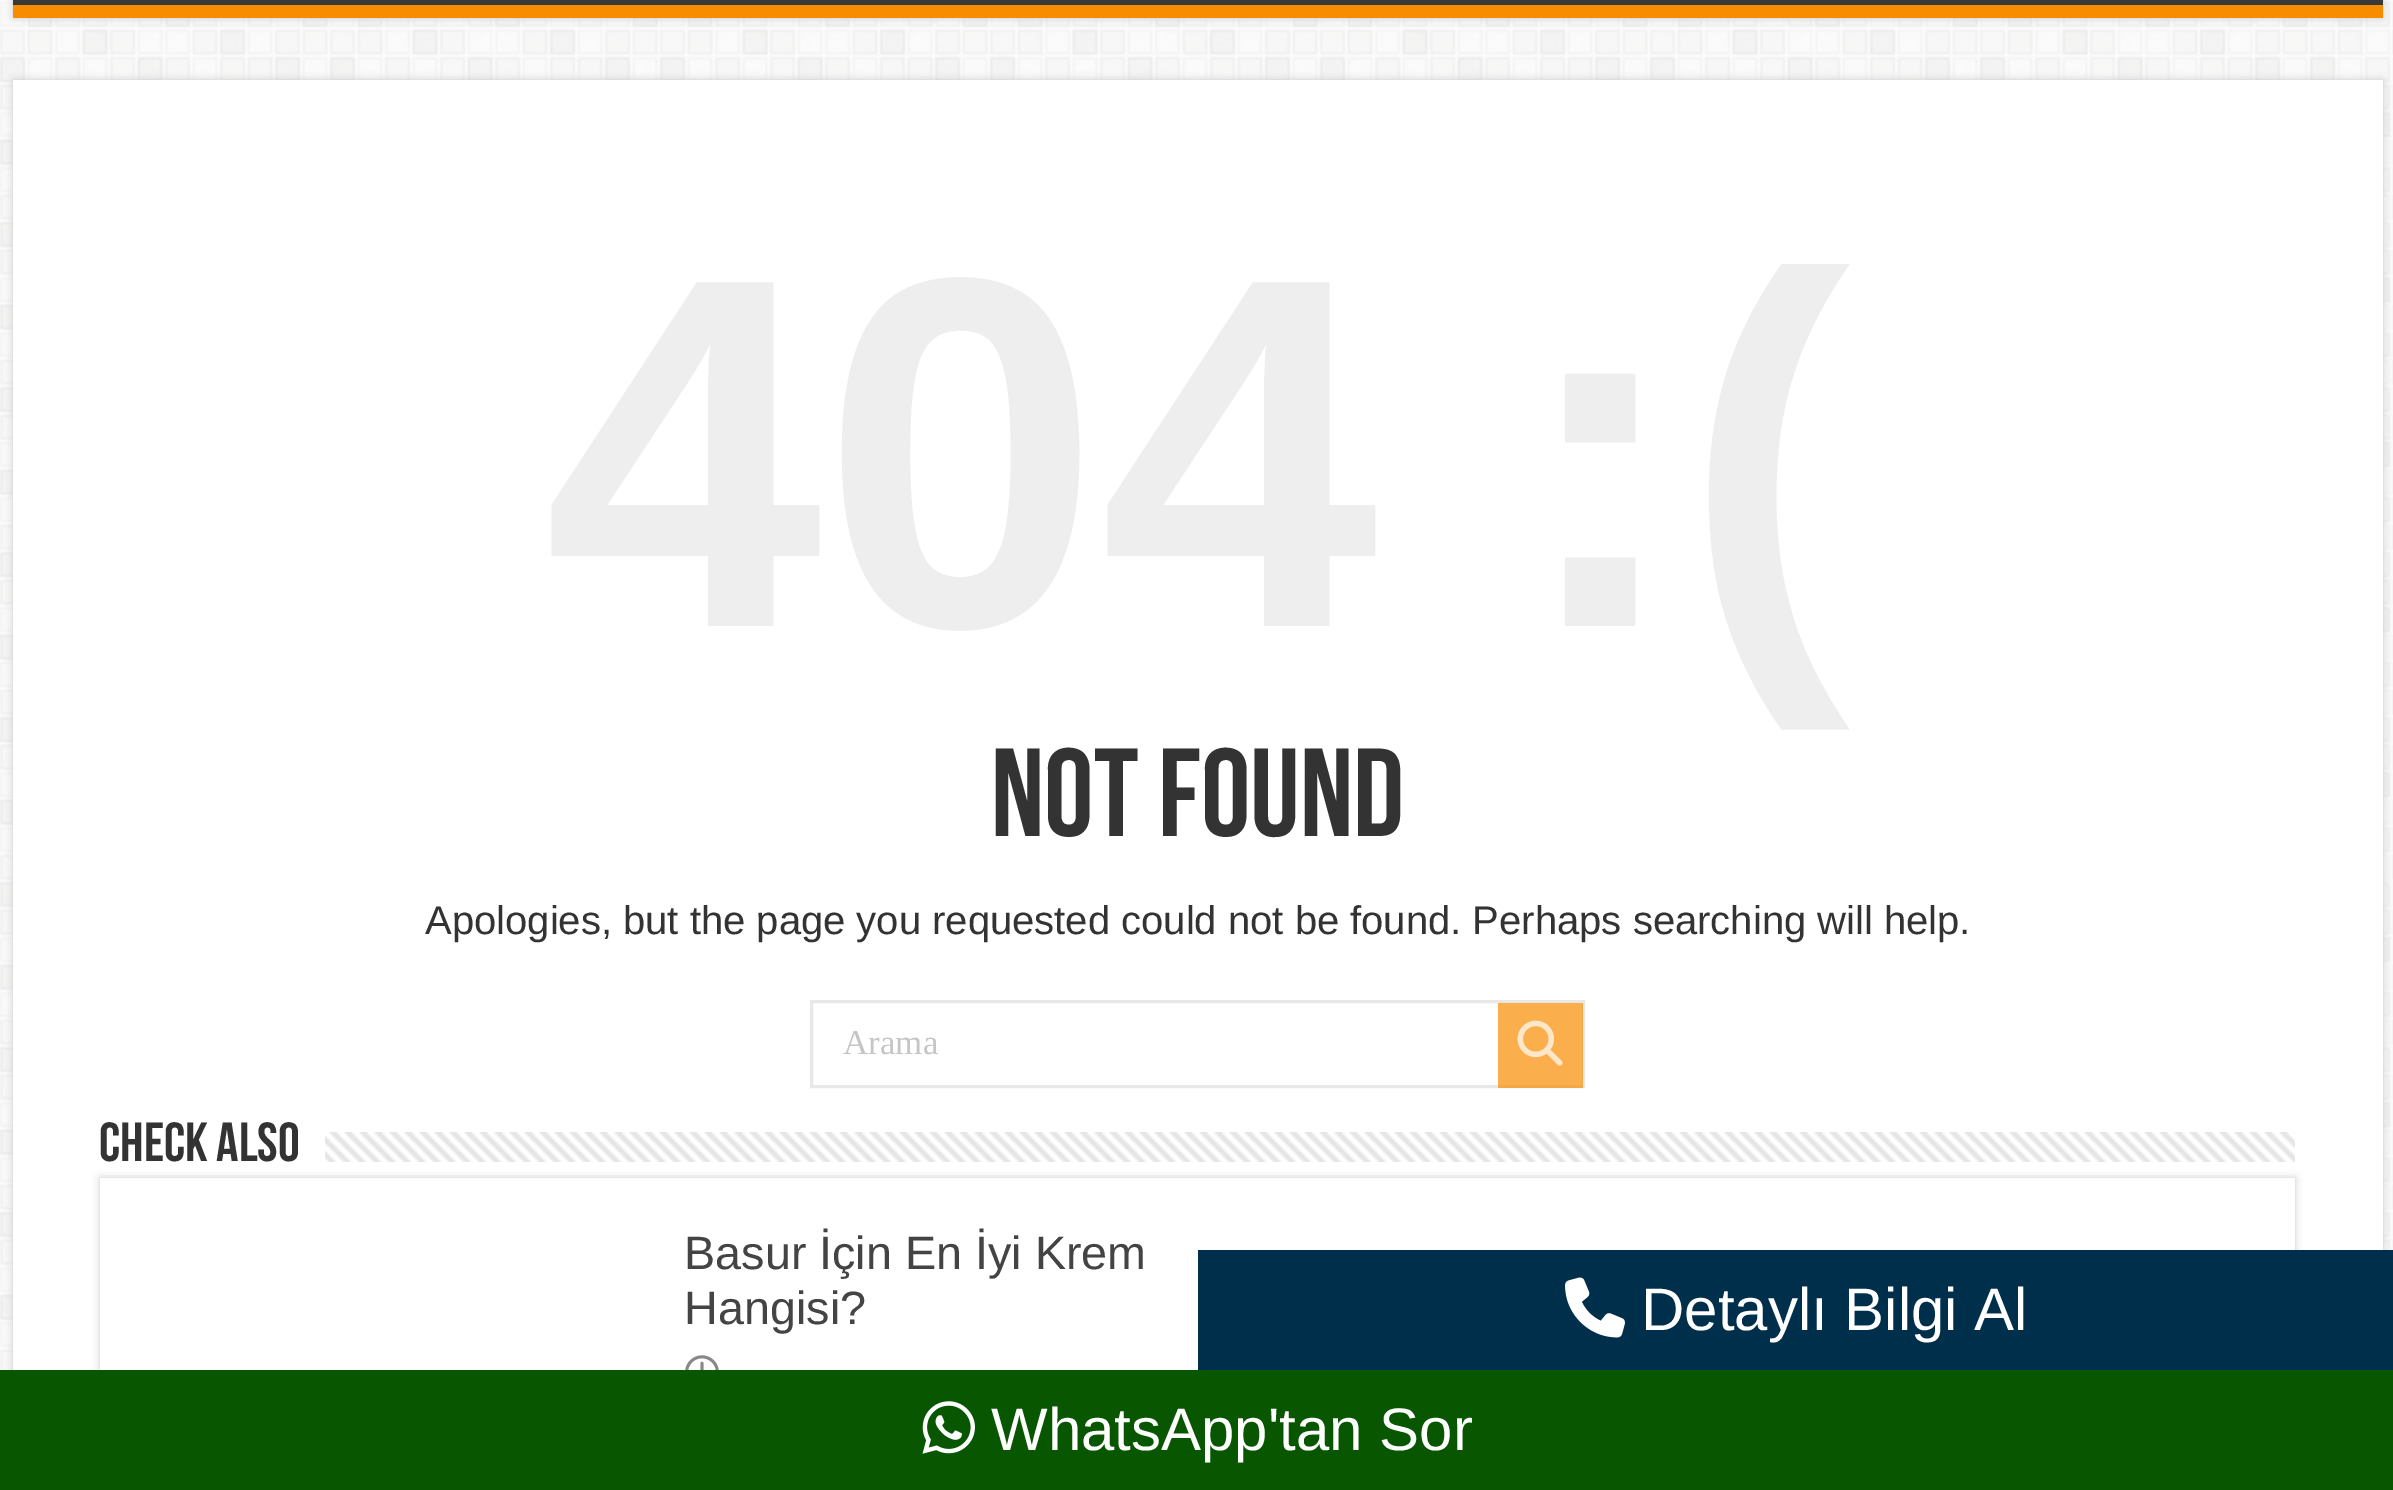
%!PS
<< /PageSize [2393 1490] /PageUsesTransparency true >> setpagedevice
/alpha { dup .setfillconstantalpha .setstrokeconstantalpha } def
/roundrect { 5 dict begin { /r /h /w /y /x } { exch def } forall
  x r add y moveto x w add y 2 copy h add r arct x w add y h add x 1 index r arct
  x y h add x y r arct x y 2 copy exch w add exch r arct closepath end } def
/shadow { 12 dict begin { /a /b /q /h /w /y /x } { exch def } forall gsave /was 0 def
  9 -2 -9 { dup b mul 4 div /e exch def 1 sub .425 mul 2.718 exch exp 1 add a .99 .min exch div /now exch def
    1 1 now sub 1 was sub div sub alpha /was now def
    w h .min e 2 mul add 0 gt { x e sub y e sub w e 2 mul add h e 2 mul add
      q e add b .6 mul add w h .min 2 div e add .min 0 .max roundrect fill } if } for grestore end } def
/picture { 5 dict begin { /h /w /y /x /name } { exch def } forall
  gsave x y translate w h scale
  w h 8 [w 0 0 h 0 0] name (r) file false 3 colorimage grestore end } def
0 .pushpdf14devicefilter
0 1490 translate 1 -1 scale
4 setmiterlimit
1 setgray
0 0 2393 1490 rectfill
(img1.rgb) 0 0 2393 1370 picture
0.792 setgray
13 -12 2370 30 0 4 1 shadow
gsave
13 0 2370 5 rectclip
0.224 setgray
newpath -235 -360 moveto 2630 -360 lineto 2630 252 lineto -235 252 lineto closepath 10 -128 moveto 2380 -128 lineto 2381 -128 2382 -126 2382 -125 curveto 2382 -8 lineto 2382 -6 2381 -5 2380 -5 curveto 10 -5 lineto 9 -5 8 -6 8 -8 curveto 8 -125 lineto 8 -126 9 -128 10 -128 curveto closepath eofill
grestore
0.973 0.549 0 setrgbcolor
13 5 2370 13 rectfill
0.792 setgray
13 80 2370 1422 0 4 1 shadow
1 setgray
13 80 2370 1290 rectfill
/LiberationSans-Bold [500 0 0 -500 0 0] selectfont
0.933 setgray
544 626 moveto (404 :\() show
/BebasNeue-Bold [125 0 0 -125 0 0] selectfont
0.2 setgray
991 836 moveto (Not Found) show
/LiberationSans-Regular [40 0 0 -40 0 0] selectfont
425 934 moveto (Apologies, but the page you requested could not be found. Perhaps searching will help.) show
0.91 setgray
3 setlinewidth
811.5 1001.5 772 85 rectstroke
/LiberationSerif-Regular [35 0 0 -35 0 0] selectfont
0.773 setgray
843 1054 moveto (Arama) show
0.7 alpha
0.973 0.549 0 setrgbcolor
1498 1003 85 85 rectfill
1 alpha
(img2.rgb) 1517 1020 46 46 picture
/BebasNeue-Bold [55 0 0 -55 0 0] selectfont
0.2 setgray
99 1161 moveto (Check Also) show
(img3.rgb) 325 1132 1970 30 picture
gsave
newpath 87 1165 moveto 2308 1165 lineto 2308 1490 lineto 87 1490 lineto closepath 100 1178 moveto 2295 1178 lineto 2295 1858 lineto 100 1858 lineto closepath eoclip newpath
0.792 setgray
100 1178 2195 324 0 4 1 shadow
grestore
/LiberationSans-Regular [46.75 0 0 -46.75 0 0] selectfont
0.267 setgray
684 1269 moveto (Basur İçin En İyi Krem) show
684 1324 moveto (Hangisi?) show
(img4.rgb) 685 1355 34 15 picture
0 0.184 0.294 setrgbcolor
1198 1250 1195 120 rectfill
(img5.rgb) 1565 1277 60 61 picture
/LiberationSans-Regular [60 0 0 -60 0 0] selectfont
1 setgray
1641 1330 moveto (Detaylı Bilgi Al) show
0.031 0.341 0 setrgbcolor
0 1370 2393 120 rectfill
(img6.rgb) 922 1401 53 53 picture
1 setgray
991 1450 moveto (WhatsApp'tan Sor) show
.poppdf14devicefilter showpage
